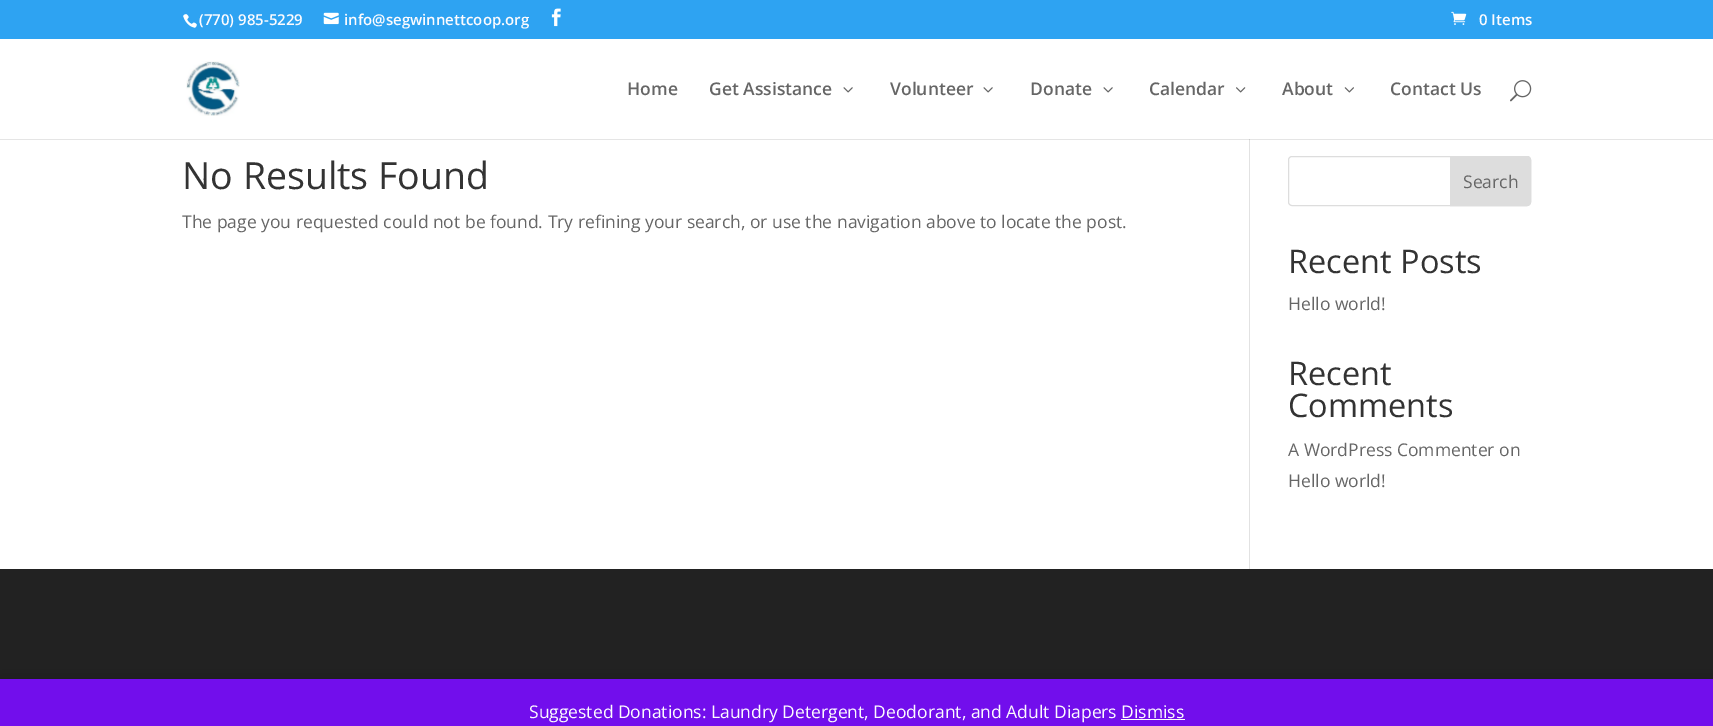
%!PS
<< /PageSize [1713 726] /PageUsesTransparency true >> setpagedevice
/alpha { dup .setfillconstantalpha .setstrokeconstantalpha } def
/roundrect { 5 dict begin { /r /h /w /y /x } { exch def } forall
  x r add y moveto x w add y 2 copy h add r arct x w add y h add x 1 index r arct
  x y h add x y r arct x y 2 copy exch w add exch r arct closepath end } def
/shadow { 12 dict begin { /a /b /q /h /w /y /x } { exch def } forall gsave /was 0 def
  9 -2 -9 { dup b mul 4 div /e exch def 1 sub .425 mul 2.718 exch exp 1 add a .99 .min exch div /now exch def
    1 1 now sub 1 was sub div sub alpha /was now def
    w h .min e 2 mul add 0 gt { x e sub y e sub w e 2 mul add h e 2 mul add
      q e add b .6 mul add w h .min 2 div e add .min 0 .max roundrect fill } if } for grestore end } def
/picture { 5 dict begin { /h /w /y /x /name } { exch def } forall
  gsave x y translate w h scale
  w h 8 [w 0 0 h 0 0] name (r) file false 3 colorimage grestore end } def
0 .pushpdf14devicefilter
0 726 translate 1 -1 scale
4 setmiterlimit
1 setgray
0 0 1713 726 rectfill
0.18 0.639 0.949 setrgbcolor
0 0 1713 39 rectfill
(img1.rgb) 183 14 14 14 picture
/OpenSans-SemiBold [15 0 0 -15 0 0] selectfont
0.988 0.984 0.996 setrgbcolor
199 25 moveto (\(770\) 985-5229) show
(img2.rgb) 323 12 16 13 picture
344 25 moveto (info@segwinnettcoop.org) show
(img3.rgb) 551 8 10 19 picture
(img4.rgb) 1451 11 16 14 picture
1479 25 moveto (0 Items) show
0.886 setgray
1249 139 1 430 rectfill
0.1 alpha
0 setgray
newpath 0 139 moveto 0 140 lineto 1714 140 lineto 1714 40 lineto 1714 139 lineto closepath fill
1 alpha
(img5.rgb) 186 61 54 55 picture
/OpenSans-SemiBold [17.5 0 0 -17.5 0 0] selectfont
0.4 setgray
627 95 moveto (Home) show
709 95 moveto (Get Assistance) show
(img6.rgb) 843 87 10 6 picture
890 95 moveto (Volunteer) show
(img6.rgb) 983 87 10 6 picture
1030 95 moveto (Donate) show
(img6.rgb) 1103 87 10 6 picture
1149 95 moveto (Calendar) show
(img7.rgb) 1236 87 10 6 picture
1282 95 moveto (About) show
(img8.rgb) 1344 87 10 6 picture
1390 95 moveto (Contact Us) show
(img9.rgb) 1510 80 22 22 picture
/OpenSans-Regular [37.5 0 0 -37.5 0 0] selectfont
0.2 setgray
182 189 moveto (No Results Found) show
/OpenSans-Regular [17.5 0 0 -17.5 0 0] selectfont
0.4 setgray
182 228 moveto (The page you requested could not be found. Try refining your search, or use the navigation above to locate the post.) show
0.867 setgray
1288.5 156.5 242 49 3.5 roundrect stroke
newpath 1450.5 156.5 moveto 1527 156.5 lineto 1529 156.5 1530.5 158 1530.5 160 curveto 1530.5 202 lineto 1530.5 204 1529 205.5 1527 205.5 curveto 1450.5 205.5 lineto closepath gsave fill grestore
stroke
0.4 setgray
1463 188 moveto (Search) show
/OpenSans-Regular [32.5 0 0 -32.5 0 0] selectfont
0.2 setgray
1288 273 moveto (Recent Posts) show
/OpenSans-Regular [17.5 0 0 -17.5 0 0] selectfont
0.4 setgray
1288 310 moveto (Hello world!) show
/OpenSans-Regular [32.5 0 0 -32.5 0 0] selectfont
0.2 setgray
1288 385 moveto (Recent) show
1288 417 moveto (Comments) show
/OpenSans-Regular [17.5 0 0 -17.5 0 0] selectfont
0.4 setgray
1288 456 moveto (A WordPress Commenter on) show
1288 487 moveto (Hello world!) show
0.133 setgray
0 569 1713 110 rectfill
0 setgray
0 680 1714 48 0 9 0.2 shadow
0.447 0.055 0.925 setrgbcolor
0 679 1713 47 rectfill
0.988 0.984 0.996 setrgbcolor
529 718 moveto (Suggested Donations: Laundry Detergent, Deodorant, and Adult Diapers Dismiss) show
1121 719 64 1 rectfill
.poppdf14devicefilter showpage
